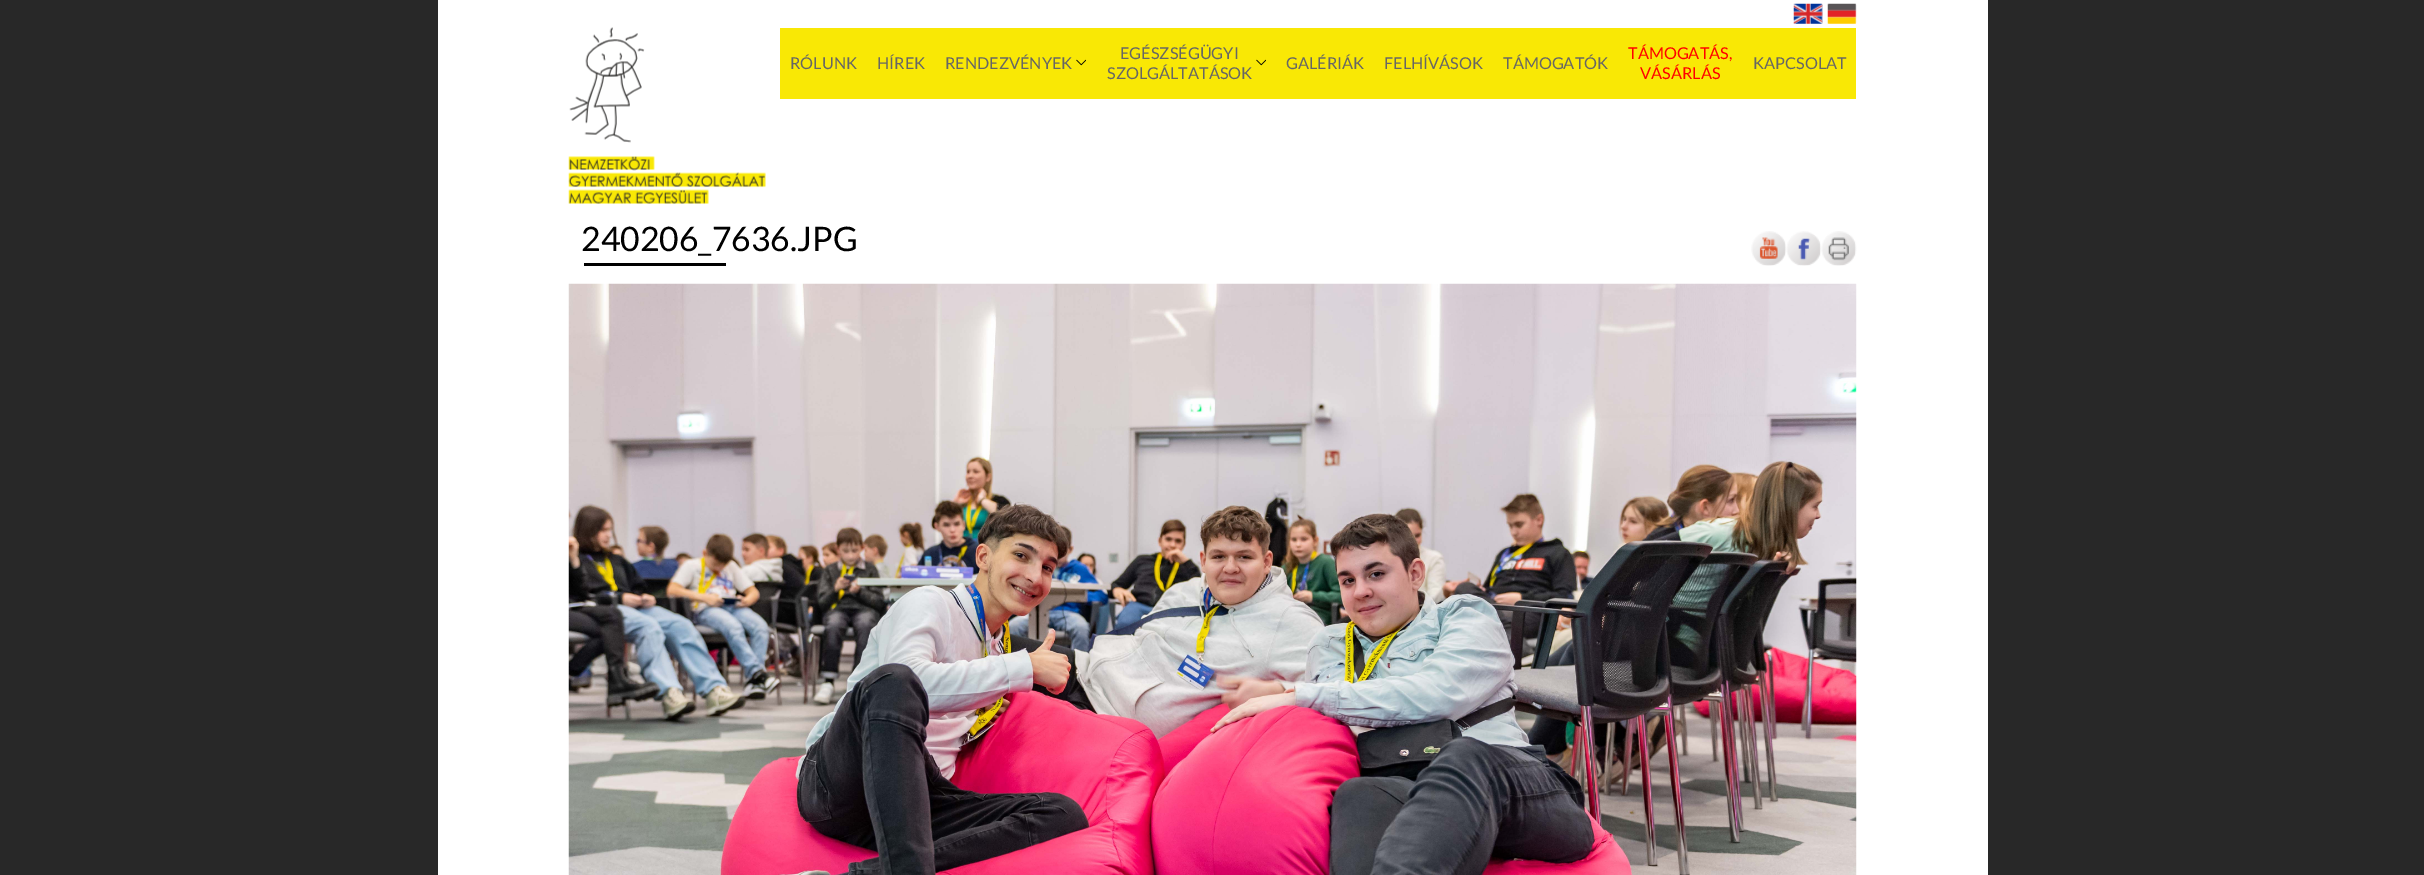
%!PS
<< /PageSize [2424 875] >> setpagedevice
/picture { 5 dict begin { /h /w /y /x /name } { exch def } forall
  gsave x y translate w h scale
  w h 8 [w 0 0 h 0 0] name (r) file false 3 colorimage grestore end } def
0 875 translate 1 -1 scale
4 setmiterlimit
0.157 setgray
0 0 2424 875 rectfill
1 setgray
438 0 1550 875 rectfill
(img1.rgb) 1793 3 30 21 picture
(img2.rgb) 1827 3 30 21 picture
(img3.rgb) 568 27 198 177 picture
0.976 0.91 0.02 setrgbcolor
780 28 316 71 rectfill
/Lato-Regular [16.25 0 0 -16.25 0 0] selectfont
0.4 setgray
790 69 moveto (RÓLUNK) show
877 69 moveto (HÍREK) show
945 69 moveto (RENDEZVÉNYEK) show
(img4.rgb) 1076 59 10 7 picture
0.976 0.91 0.02 setrgbcolor
1096 28 760 71 rectfill
0.4 setgray
1120 59 moveto (EGÉSZSÉGÜGYI) show
(img4.rgb) 1256 59 10 7 picture
1107 79 moveto (SZOLGÁLTATÁSOK) show
1286 69 moveto (GALÉRIÁK) show
1384 69 moveto (FELHÍVÁSOK) show
1503 69 moveto (TÁMOGATÓK) show
1 0 0 setrgbcolor
1628 59 moveto (TÁMOGATÁS,) show
1640 79 moveto (VÁSÁRLÁS) show
0.4 setgray
1753 69 moveto (KAPCSOLAT) show
/Lato-Regular [33.75 0 0 -33.75 0 0] selectfont
0 setgray
581 251 moveto (240206_7636.JPG) show
584 263 142 3 rectfill
(img5.rgb) 568 283 1289 592 picture
(img6.rgb) 1751 231 35 35 picture
(img7.rgb) 1786 231 35 35 picture
(img8.rgb) 1821 231 36 35 picture
showpage
